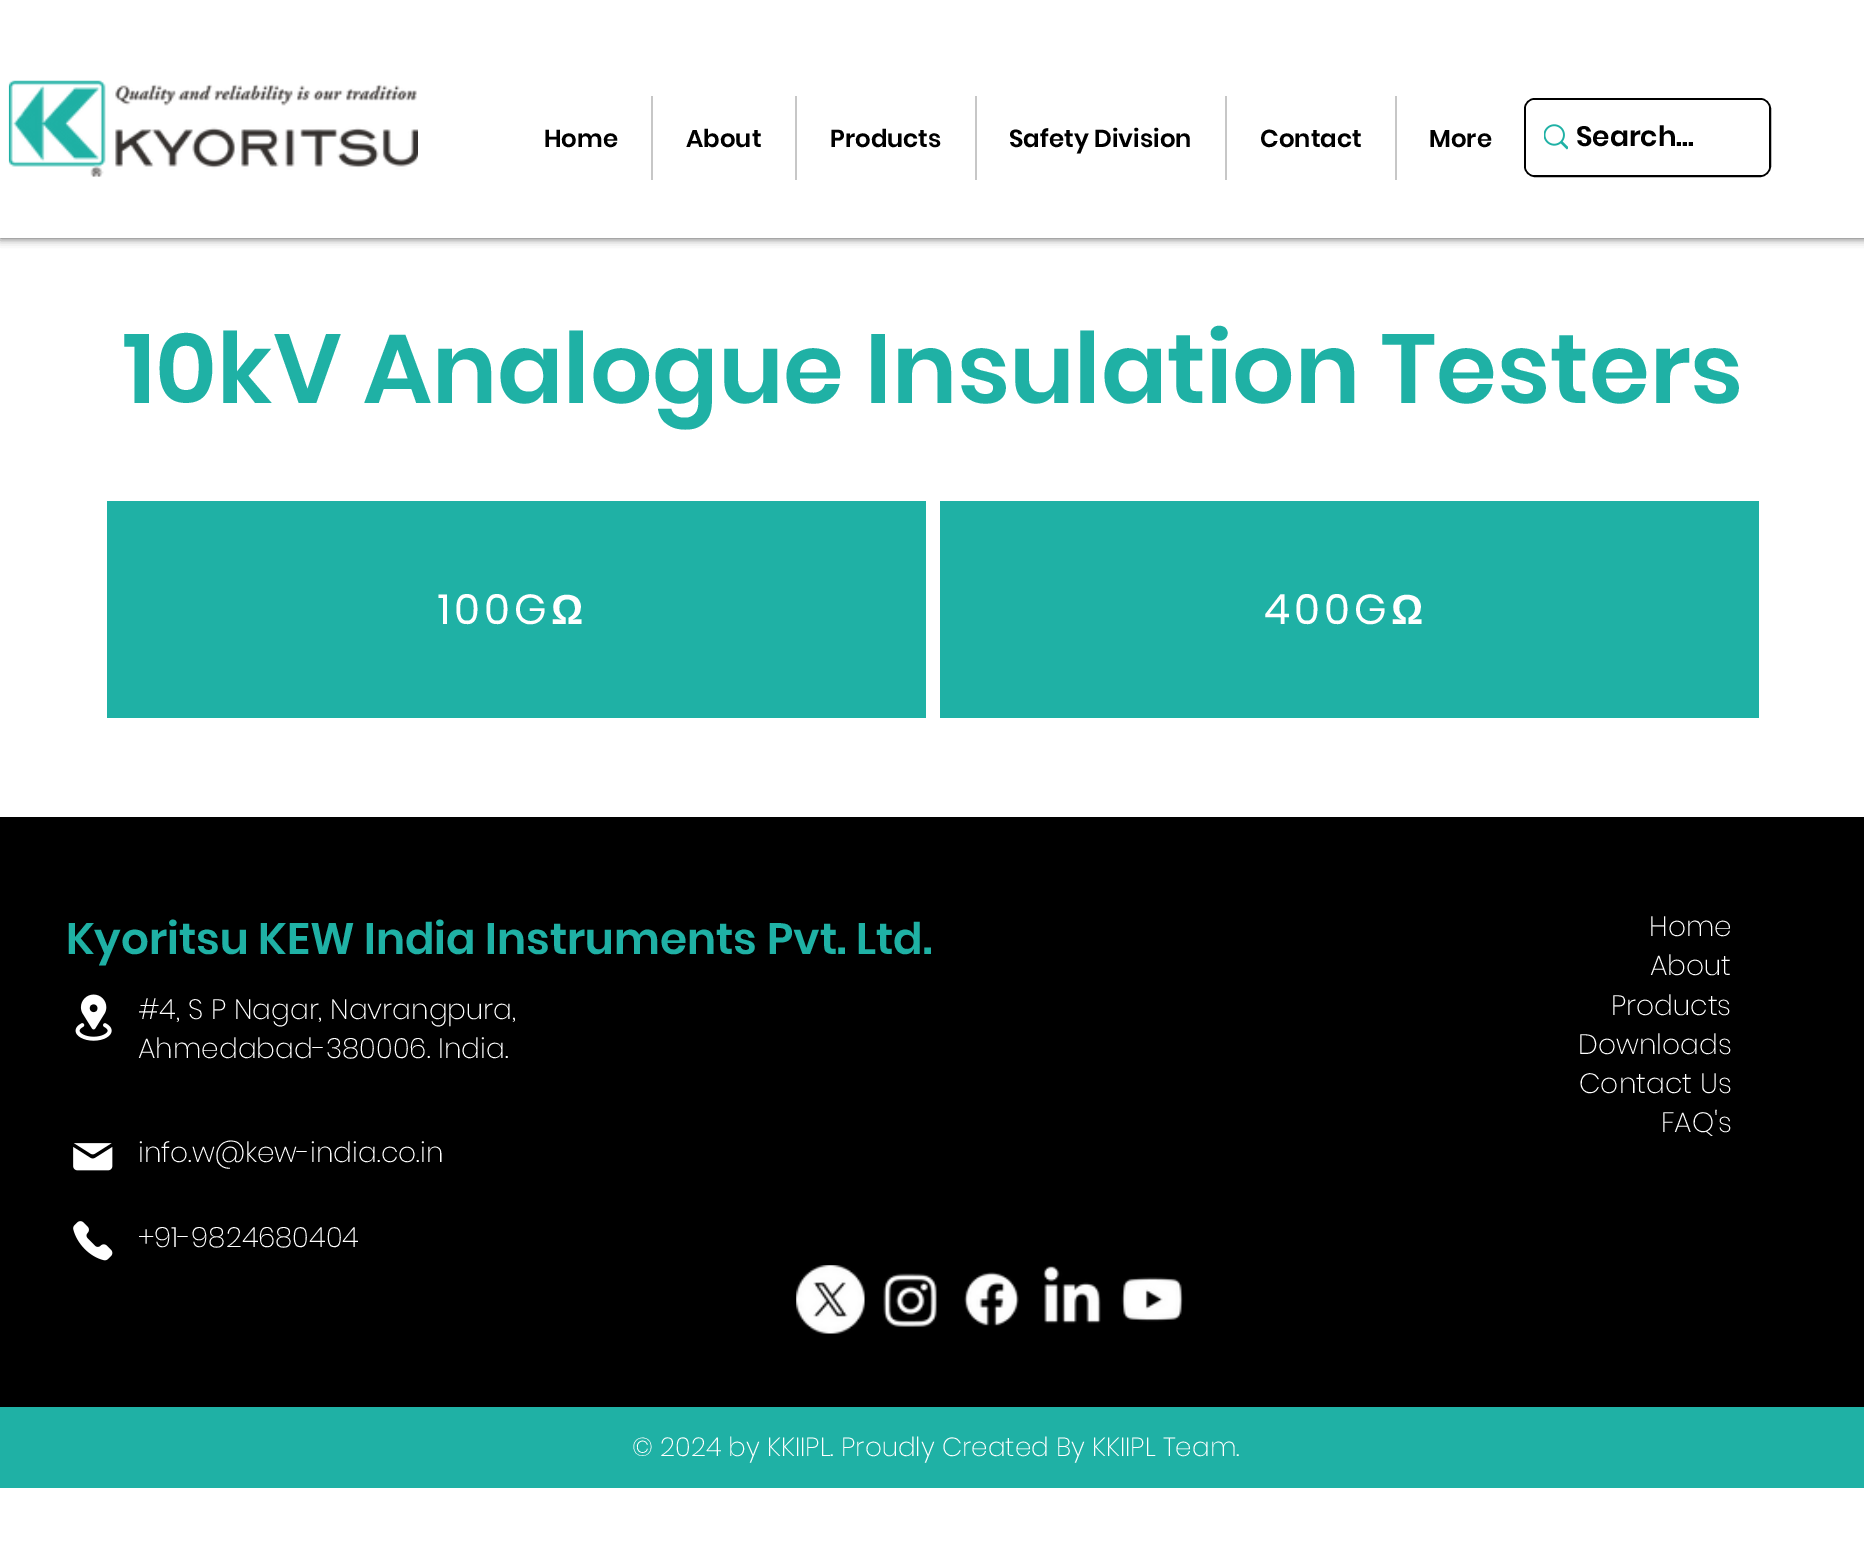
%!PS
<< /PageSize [1864 1556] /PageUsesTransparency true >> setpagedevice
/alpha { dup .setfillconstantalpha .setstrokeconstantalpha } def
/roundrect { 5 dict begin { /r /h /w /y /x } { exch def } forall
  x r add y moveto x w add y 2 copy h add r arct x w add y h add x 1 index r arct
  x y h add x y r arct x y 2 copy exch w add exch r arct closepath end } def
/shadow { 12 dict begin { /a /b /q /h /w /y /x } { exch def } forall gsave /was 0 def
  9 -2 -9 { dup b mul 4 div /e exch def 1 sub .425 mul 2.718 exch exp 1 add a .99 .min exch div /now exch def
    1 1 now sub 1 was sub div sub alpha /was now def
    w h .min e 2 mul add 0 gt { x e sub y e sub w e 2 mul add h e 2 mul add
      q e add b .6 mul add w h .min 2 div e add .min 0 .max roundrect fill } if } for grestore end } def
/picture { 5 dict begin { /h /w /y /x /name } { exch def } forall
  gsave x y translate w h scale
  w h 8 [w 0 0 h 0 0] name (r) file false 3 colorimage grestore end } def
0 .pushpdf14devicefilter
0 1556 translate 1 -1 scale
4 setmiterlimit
1 setgray
0 0 1864 1556 rectfill
0 setgray
0 0 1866 238 0 4.5 0.7 shadow
1 setgray
0 0 1864 238 rectfill
(img1.rgb) 8 80 410 97 picture
/Poppins-SemiBold [24.5 0 0 -24.5 0 0] selectfont
0 setgray
544 147 moveto (Home) show
0.78 setgray
651 96 2 84 rectfill
0 setgray
686 147 moveto (About) show
0.78 setgray
795 96 2 84 rectfill
0 setgray
830 147 moveto (Products) show
0.78 setgray
975 96 2 84 rectfill
0 setgray
1009 147 moveto (Safety Division) show
0.78 setgray
1225 96 2 84 rectfill
0 setgray
1260 147 moveto (Contact) show
0.78 setgray
1395 96 2 84 rectfill
0 setgray
1429 147 moveto (More) show
2 setlinewidth
1525 99 245 77 10 roundrect stroke
1 setgray
1526 100 243 75 9 roundrect fill
(img2.rgb) 1544 124 24 26 picture
/Poppins-SemiBold [28 0 0 -28 0 0] selectfont
0 setgray
1576 146 moveto (Search...) show
/Poppins-SemiBold [98 0 0 -98 0 0] selectfont
0.122 0.694 0.647 setrgbcolor
123 403 moveto (10kV Analogue Insulation Testers) show
107 501 819 217 rectfill
/Poppins-Regular [42 0 0 -42 0 0] selectfont
1 setgray
438 624 moveto 4 0 (100G) ashow
/LiberationSans-Bold [42 0 0 -42 0 0] selectfont
551 624 moveto 4 0 (Ω) ashow
0.122 0.694 0.647 setrgbcolor
940 501 819 217 rectfill
/Poppins-Regular [42 0 0 -42 0 0] selectfont
1 setgray
1264 624 moveto 4 0 (400G) ashow
/LiberationSans-Bold [42 0 0 -42 0 0] selectfont
1391 624 moveto 4 0 (Ω) ashow
0 setgray
0 817 1864 590 rectfill
/Poppins-SemiBold [43.75 0 0 -43.75 0 0] selectfont
0.122 0.694 0.647 setrgbcolor
66 954 moveto (Kyoritsu KEW India Instruments Pvt. Ltd.) show
(img3.rgb) 75 994 37 47 picture
/Poppins-ExtraLight [28 0 0 -28 0 0] selectfont
1 setgray
138 1019 moveto (#4, S P Nagar, Navrangpura,) show
138 1058 moveto (Ahmedabad-380006. India.) show
(img4.rgb) 73 1143 40 28 picture
138 1162 moveto (info.w@kew-india.co.in) show
(img5.rgb) 73 1221 40 40 picture
138 1247 moveto (+91-9824680404) show
(img6.rgb) 796 1265 69 69 picture
(img7.rgb) 883 1273 54 54 picture
(img8.rgb) 964 1272 55 54 picture
(img9.rgb) 1043 1266 58 58 picture
(img10.rgb) 1121 1277 62 45 picture
1649 936 moveto (Home) show
1650 975 moveto (About) show
1611 1015 moveto (Products) show
1578 1054 moveto (Downloads) show
1579 1093 moveto (Contact Us) show
1661 1132 moveto (FAQ's) show
0.122 0.694 0.647 setrgbcolor
0 1407 1864 81 rectfill
/Poppins-ExtraLight [26.25 0 0 -26.25 0 0] selectfont
1 setgray
632 1456 moveto (© 2024 by KKIIPL. Proudly Created By KKIIPL Team.) show
.poppdf14devicefilter showpage
